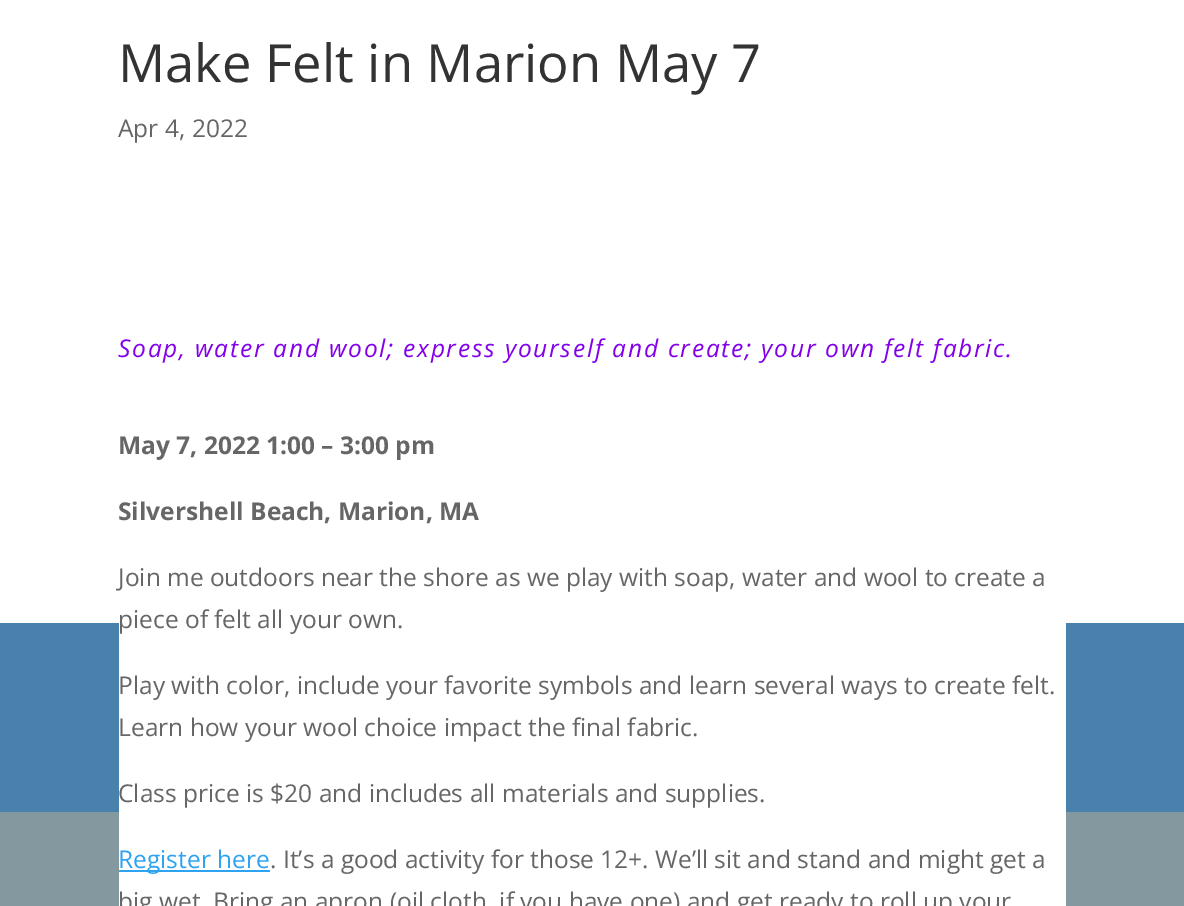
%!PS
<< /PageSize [1184 906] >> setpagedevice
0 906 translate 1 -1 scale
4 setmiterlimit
1 setgray
0 0 1184 906 rectfill
/OpenSans-Regular [52.5 0 0 -52.5 0 0] selectfont
0.2 setgray
118 82 moveto (Make Felt in Marion May 7) show
/OpenSans-Regular [24.5 0 0 -24.5 0 0] selectfont
0.4 setgray
118 137 moveto (Apr 4, 2022) show
0.282 0.506 0.671 setrgbcolor
0 623 1184 189 rectfill
0.514 0.6 0.624 setrgbcolor
0 812 1184 94 rectfill
1 setgray
119 623 947 283 rectfill
/OpenSans-Italic [24.5 0 0 -24.5 0 0] selectfont
0.514 0 0.914 setrgbcolor
118 357 moveto 1.75 0 (Soap, water and wool; express yourself and create; your own felt fabric.) ashow
/OpenSans-Bold [24.5 0 0 -24.5 0 0] selectfont
0.4 setgray
118 454 moveto (May 7, 2022 1:00 – 3:00 pm) show
118 520 moveto (Silvershell Beach, Marion, MA) show
/OpenSans-Regular [24.5 0 0 -24.5 0 0] selectfont
118 586 moveto (Join me outdoors near the shore as we play with soap, water and wool to create a) show
118 628 moveto (piece of felt all your own.) show
118 694 moveto (Play with color, include your favorite symbols and learn several ways to create felt.) show
118 736 moveto (Learn how your wool choice impact the final fabric.) show
118 802 moveto (Class price is $20 and includes all materials and supplies.) show
0.18 0.639 0.949 setrgbcolor
119 870 151 2 rectfill
118 868 moveto (Register here) show
0.4 setgray
270 868 moveto (. It’s a good activity for those 12+. We’ll sit and stand and might get a) show
118 910 moveto (big wet. Bring an apron \(oil cloth, if you have one\) and get ready to roll up your) show
showpage
